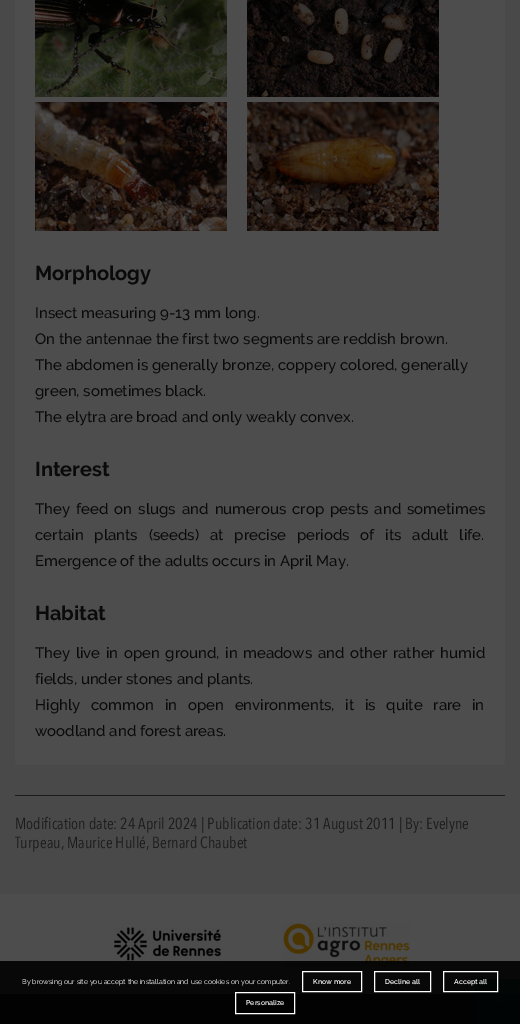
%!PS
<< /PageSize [520 1024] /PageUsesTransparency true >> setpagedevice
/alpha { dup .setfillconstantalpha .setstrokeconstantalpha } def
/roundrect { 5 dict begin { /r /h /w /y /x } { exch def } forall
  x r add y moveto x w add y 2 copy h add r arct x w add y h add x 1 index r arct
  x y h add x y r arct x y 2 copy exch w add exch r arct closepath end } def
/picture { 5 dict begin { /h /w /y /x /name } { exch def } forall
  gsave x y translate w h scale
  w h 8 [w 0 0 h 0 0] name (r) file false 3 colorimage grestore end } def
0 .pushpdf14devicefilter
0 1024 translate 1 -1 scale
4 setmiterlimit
0.302 setgray
0 0 520 1024 rectfill
0.094 0.227 0.22 setrgbcolor
475 979 45 15 rectfill
0.286 0.286 0.29 setrgbcolor
0 0 520 894 rectfill
0.302 setgray
15 -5 490 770 5 roundrect fill
(img1.rgb) 35 0 192 97 picture
(img2.rgb) 247 0 192 97 picture
(img3.rgb) 35 102 192 129 picture
(img4.rgb) 247 102 192 129 picture
/Raleway-Bold [20 0 0 -20 0 0] selectfont
0.039 setgray
35 280 moveto (Morphology) show
/Raleway-Medium [15 0 0 -15 0 0] selectfont
35 318 moveto (Insect measuring 9-13 mm long.) show
35 344 moveto (On the antennae the first two segments are reddish brown.) show
35 370 moveto (The abdomen is generally bronze, coppery colored, generally) show
35 396 moveto (green, sometimes black.) show
35 422 moveto (The elytra are broad and only weakly convex.) show
/Raleway-Bold [20 0 0 -20 0 0] selectfont
35 476 moveto (Interest) show
/Raleway-Medium [15 0 0 -15 0 0] selectfont
35 514 moveto 2.25 0 32 (They feed on slugs and numerous crop pests and sometimes) widthshow
35 540 moveto 7 0 32 (certain plants \(seeds\) at precise periods of its adult life.) widthshow
35 566 moveto (Emergence of the adults occurs in April May.) show
/Raleway-Bold [20 0 0 -20 0 0] selectfont
35 620 moveto (Habitat) show
/Raleway-Medium [15 0 0 -15 0 0] selectfont
35 658 moveto 1.75 0 32 (They live in open ground, in meadows and other rather humid) widthshow
35 684 moveto (fields, under stones and plants.) show
35 710 moveto 7 0 32 (Highly common in open environments, it is quite rare in) widthshow
35 736 moveto (woodland and forest areas.) show
0.106 setgray
15 795 490 1 rectfill
/AvenirNext-Regular [16 0 0 -16 0 0] selectfont
15 829 moveto (Modification date: 24 April 2024 | Publication date: 31 August 2011 | By: Evelyne) show
15 848 moveto (Turpeau, Maurice Hullé, Bernard Chaubet) show
(img5.rgb) 114 927 107 34 picture
(img6.rgb) 283 923 127 44 picture
0.094 setgray
0 994 475 30 rectfill
0.031 0.165 0.161 setrgbcolor
475 994 45 30 rectfill
(img7.rgb) 493 999 10 6 picture
0.9 alpha
0 setgray
0 961 520 63 rectfill
/Raleway-Regular [7 0 0 -7 0 0] selectfont
1 alpha
1 setgray
22 984 moveto (By browsing our site you accept the installation and use cookies on your computer.) show
302.5 971.5 59 20 rectstroke
/Raleway-SemiBold [7 0 0 -7 0 0] selectfont
313 984 moveto (Know more) show
374.5 971.5 56 20 rectstroke
385 984 moveto (Decline all) show
443.5 971.5 54 20 rectstroke
454 984 moveto (Accept all) show
235.5 992.5 59 21 rectstroke
246 1005 moveto (Personalize) show
.poppdf14devicefilter showpage
